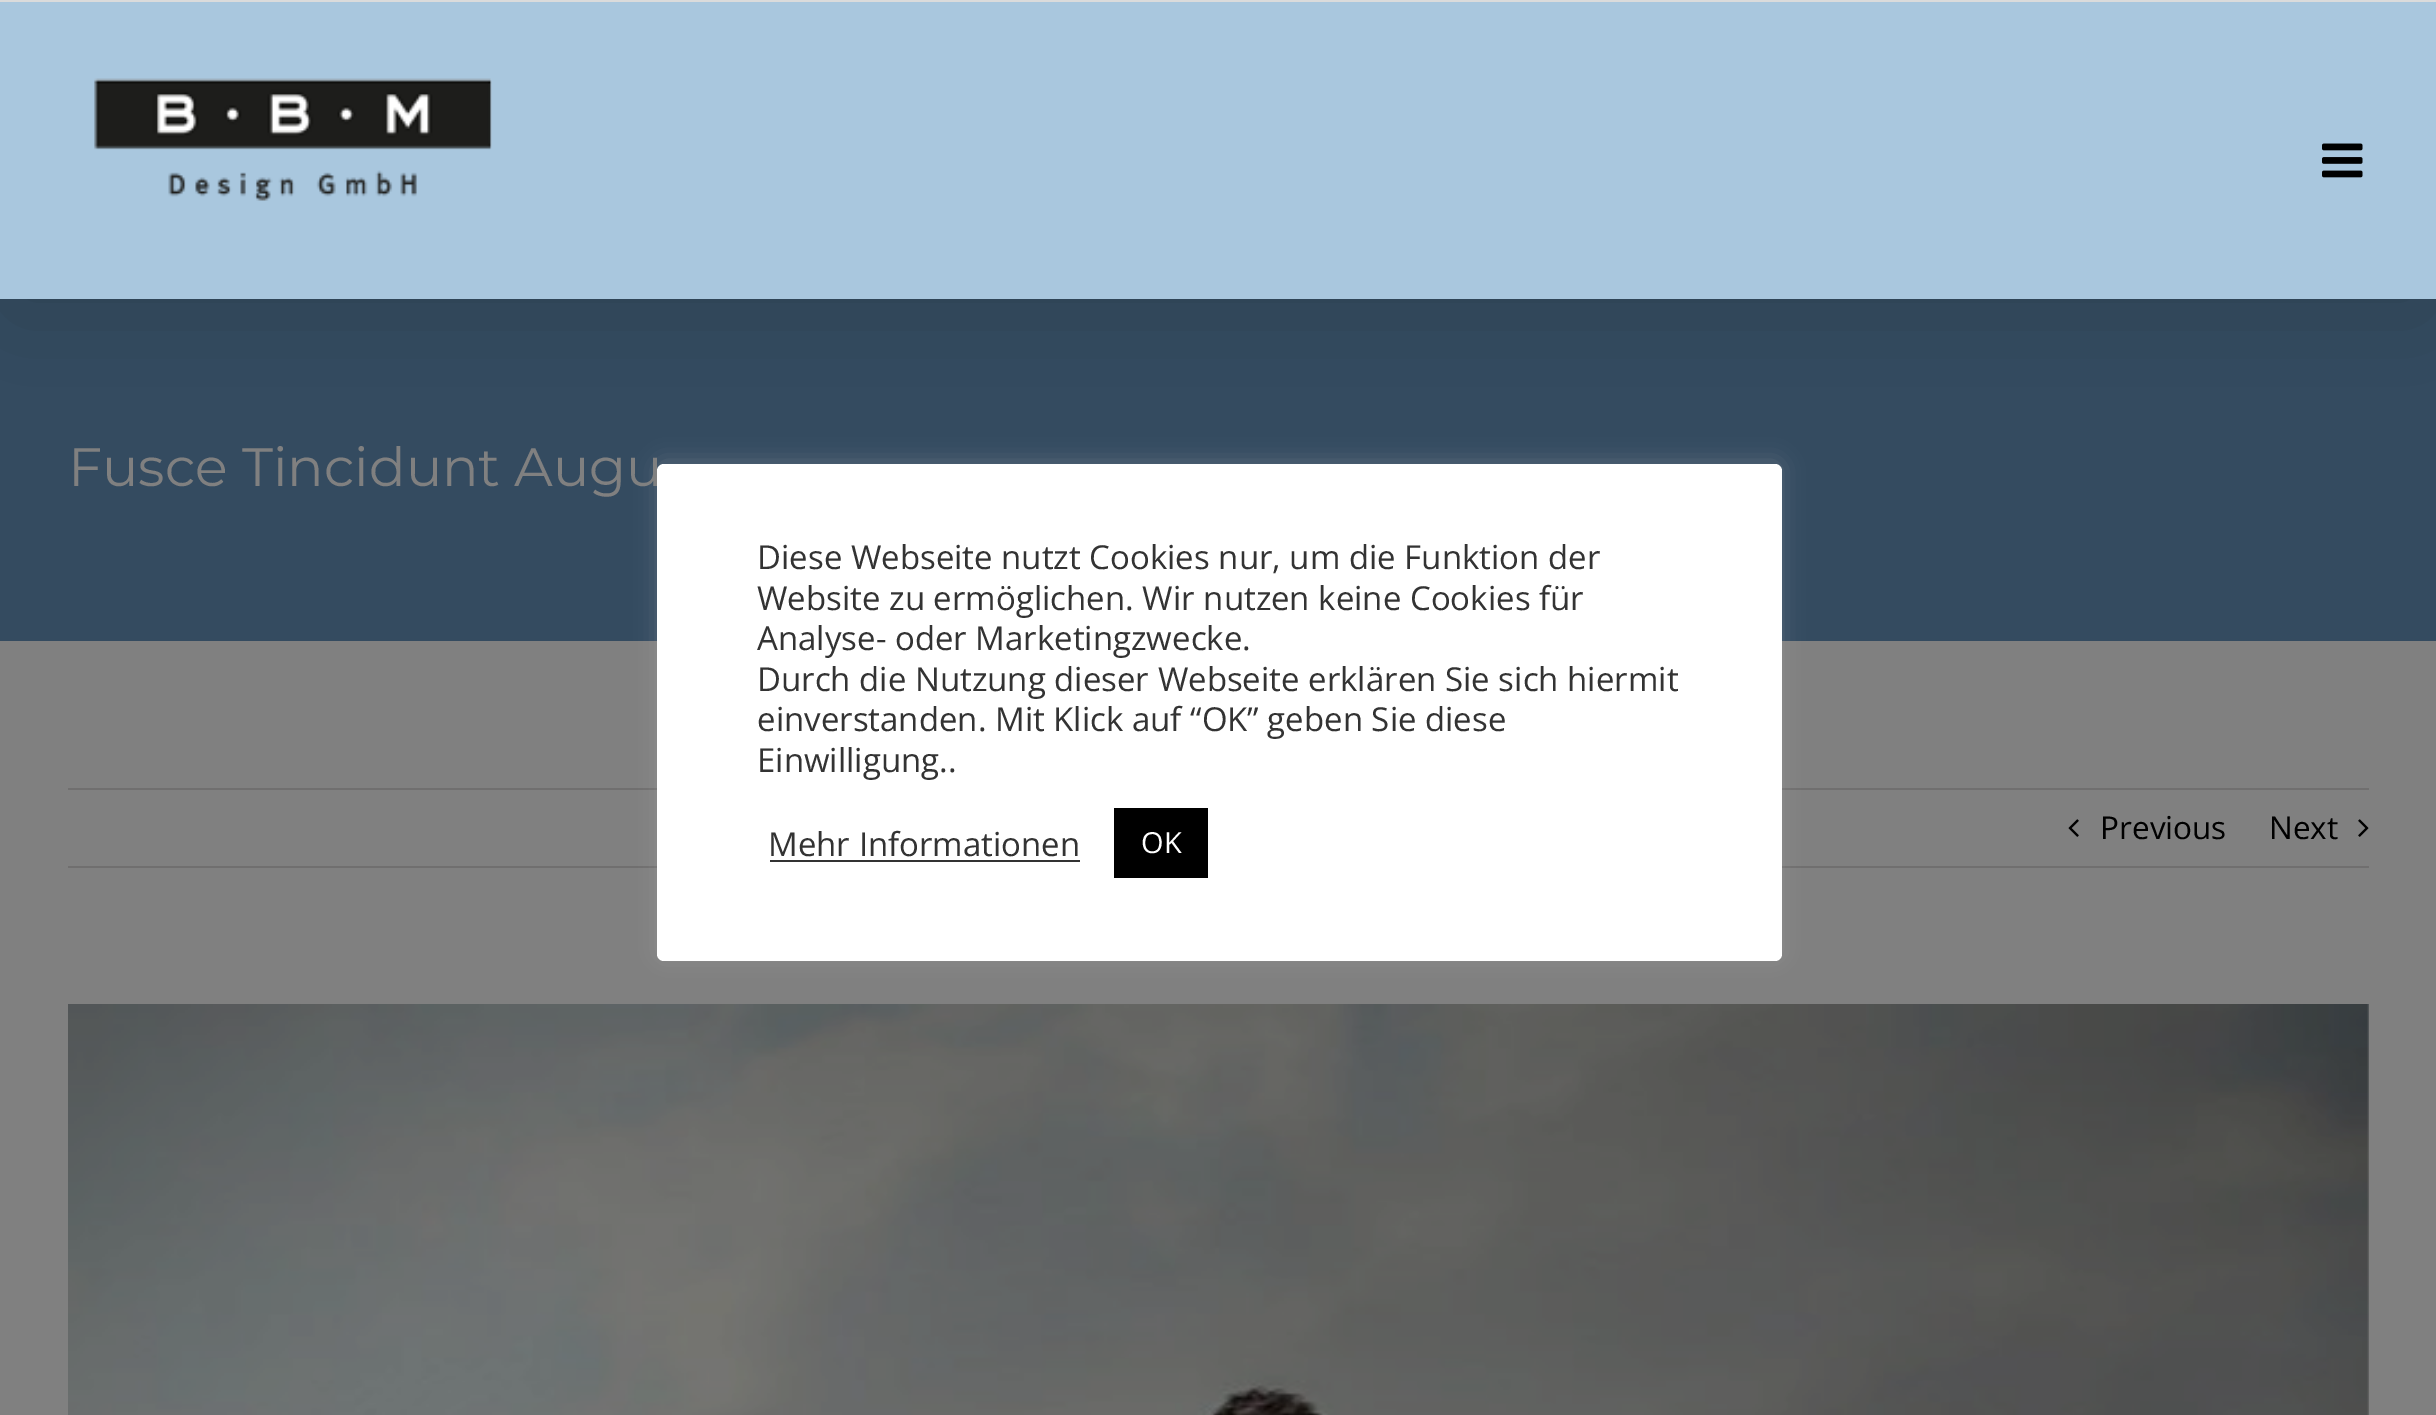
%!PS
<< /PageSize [2436 1415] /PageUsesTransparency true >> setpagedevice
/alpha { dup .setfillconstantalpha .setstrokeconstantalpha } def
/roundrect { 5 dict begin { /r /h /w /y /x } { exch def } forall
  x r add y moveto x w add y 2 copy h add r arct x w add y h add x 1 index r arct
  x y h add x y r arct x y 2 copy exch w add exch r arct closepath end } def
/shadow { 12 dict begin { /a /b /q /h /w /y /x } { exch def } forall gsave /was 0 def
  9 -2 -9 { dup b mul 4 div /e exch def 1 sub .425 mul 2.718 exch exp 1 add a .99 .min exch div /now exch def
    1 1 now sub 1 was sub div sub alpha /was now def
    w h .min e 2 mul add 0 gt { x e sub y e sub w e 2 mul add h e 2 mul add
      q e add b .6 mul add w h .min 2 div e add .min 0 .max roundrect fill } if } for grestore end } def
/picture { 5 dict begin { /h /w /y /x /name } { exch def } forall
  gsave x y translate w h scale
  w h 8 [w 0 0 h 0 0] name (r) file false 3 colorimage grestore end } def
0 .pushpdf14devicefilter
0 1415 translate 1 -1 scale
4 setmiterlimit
0.502 setgray
0 0 2436 1415 rectfill
0.204 0.294 0.376 setrgbcolor
0 299 2436 342 rectfill
0.439 0.435 0.435 setrgbcolor
68 788 2301 2 rectfill
68 866 2301 2 rectfill
0.675 0.671 0.671 setrgbcolor
657 461 1125 498 7 11 0.3 shadow
1 setgray
657 464 1125 497 7 roundrect fill
0 setgray
5 27 2427 290 0 56 0.14 shadow
0.859 setgray
0 0 2436 2 rectfill
0.663 0.78 0.871 setrgbcolor
0 2 2436 297 rectfill
(img1.rgb) 94 78 398 123 picture
(img2.rgb) 2322 143 41 35 picture
/Montserrat-Thin [54 0 0 -54 0 0] selectfont
0.502 setgray
68 486 moveto (Fusce Tincidunt Augu) show
(img3.rgb) 2068 819 11 18 picture
/OpenSans-Regular [31.5 0 0 -31.5 0 0] selectfont
0 setgray
2100 839 moveto (Previous) show
2269 839 moveto (Next) show
(img4.rgb) 2358 819 11 18 picture
(img5.rgb) 68 1004 2301 411 picture
/OpenSans-Regular [33 0 0 -33 0 0] selectfont
0.2 setgray
757 569 moveto (Diese Webseite nutzt Cookies nur, um die Funktion der) show
757 610 moveto (Website zu ermöglichen. Wir nutzen keine Cookies für) show
757 650 moveto (Analyse- oder Marketingzwecke.) show
757 691 moveto (Durch die Nutzung dieser Webseite erklären Sie sich hiermit) show
757 731 moveto (einverstanden. Mit Klick auf “OK” geben Sie diese) show
757 772 moveto (Einwilligung..) show
768 856 moveto (Mehr Informationen) show
770 860 310 2 rectfill
0 setgray
1114 808 94 70 rectfill
/OpenSans-Regular [29 0 0 -29 0 0] selectfont
1 setgray
1141 853 moveto (OK) show
.poppdf14devicefilter showpage
